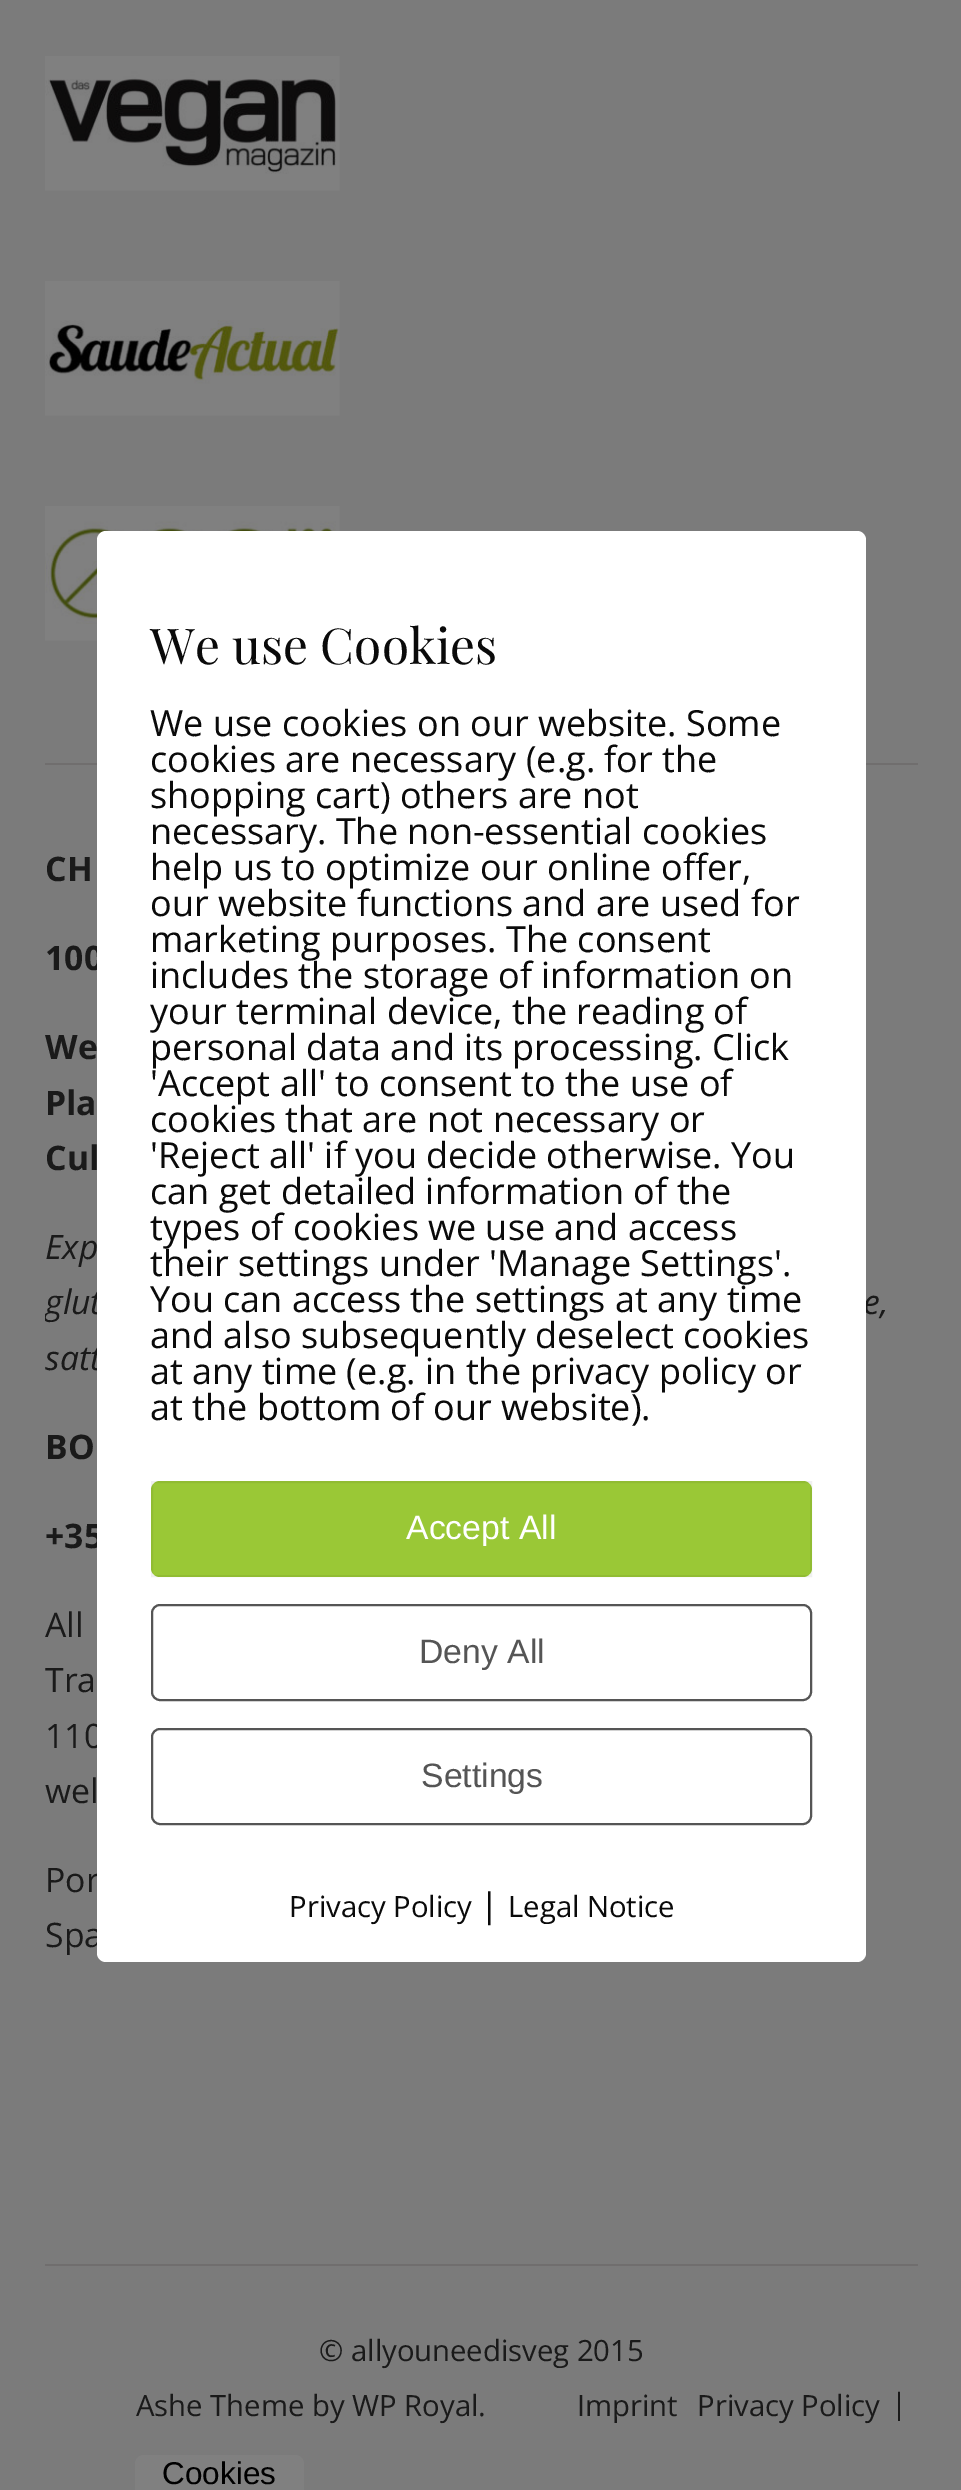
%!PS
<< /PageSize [961 2490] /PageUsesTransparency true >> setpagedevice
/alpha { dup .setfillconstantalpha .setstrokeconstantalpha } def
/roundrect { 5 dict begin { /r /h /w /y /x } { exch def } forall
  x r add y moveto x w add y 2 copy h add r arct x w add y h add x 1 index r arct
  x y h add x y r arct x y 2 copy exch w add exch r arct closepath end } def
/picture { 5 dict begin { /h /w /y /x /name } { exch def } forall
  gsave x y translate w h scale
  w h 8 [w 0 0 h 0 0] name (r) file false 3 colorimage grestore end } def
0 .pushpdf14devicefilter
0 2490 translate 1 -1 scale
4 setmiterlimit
0.482 setgray
0 0 961 2490 rectfill
(img3.rgb) 45 506 295 135 picture
/OpenSans-Bold [33.75 0 0 -33.75 0 0] selectfont
0.102 setgray
45 970 moveto (100) show
gsave
45 731 873 1443 rectclip
/OpenSans-Italic [33.75 0 0 -33.75 0 0] selectfont
45 1314 moveto (glut) show
grestore
/OpenSans-Italic [33.75 0 0 -33.75 0 0] selectfont
863 1314 moveto (e,) show
45 1370 moveto (satt) show
/OpenSans-Bold [33.75 0 0 -33.75 0 0] selectfont
45 1548 moveto (+35) show
/OpenSans-Regular [33.75 0 0 -33.75 0 0] selectfont
45 1748 moveto (110) show
45 1892 moveto (Por) show
45 1947 moveto (Spa) show
1 setgray
97 531 769 1431 9 roundrect fill
/PlayfairDisplay-Regular [49.5 0 0 -49.5 0 0] selectfont
0.039 setgray
150 664 moveto (We use Cookies) show
/OpenSans-Regular [36 0 0 -36 0 0] selectfont
150 736 moveto (We use cookies on our website. Some) show
150 772 moveto (cookies are necessary \(e.g. for the) show
150 808 moveto (shopping cart\) others are not) show
150 844 moveto (necessary. The non-essential cookies) show
150 880 moveto (help us to optimize our online offer,) show
150 916 moveto (our website functions and are used for) show
150 952 moveto (marketing purposes. The consent) show
150 988 moveto (includes the storage of information on) show
150 1024 moveto (your terminal device, the reading of) show
150 1060 moveto (personal data and its processing. Click) show
150 1096 moveto ('Accept all' to consent to the use of) show
150 1132 moveto (cookies that are not necessary or) show
150 1168 moveto ('Reject all' if you decide otherwise. You) show
150 1204 moveto (can get detailed information of the) show
150 1240 moveto (types of cookies we use and access) show
150 1276 moveto (their settings under 'Manage Settings'.) show
150 1312 moveto (You can access the settings at any time) show
150 1348 moveto (and also subsequently deselect cookies) show
150 1384 moveto (at any time \(e.g. in the privacy policy or) show
150 1420 moveto (at the bottom of our website\).) show
0.604 0.784 0.212 setrgbcolor
151 1481 661 96 9 roundrect fill
0.06 alpha
0 setgray
2 setlinewidth
152 1482 659 94 rectstroke
/LiberationSans-Regular [33.75 0 0 -33.75 0 0] selectfont
1 alpha
1 setgray
406 1539 moveto (Accept All) show
0.333 setgray
152 1605 659 95 8 roundrect stroke
419 1663 moveto (Deny All) show
152 1729 659 95 8 roundrect stroke
421 1787 moveto (Settings) show
/OpenSans-Regular [29.25 0 0 -29.25 0 0] selectfont
0.039 setgray
289 1917 moveto (Privacy Policy) show
/OpenSans-Regular [33.75 0 0 -33.75 0 0] selectfont
480 1917 moveto (|) show
/OpenSans-Regular [29.25 0 0 -29.25 0 0] selectfont
508 1917 moveto (Legal Notice) show
0.439 0.431 0.431 setrgbcolor
45 2264 873 2 rectfill
(img1.rgb) 45 56 295 135 picture
(img2.rgb) 45 281 295 135 picture
45 763 52 2 rectfill
866 763 52 2 rectfill
/OpenSans-Bold [33.75 0 0 -33.75 0 0] selectfont
0.102 setgray
45 881 moveto (CH) show
45 1059 moveto (We) show
45 1115 moveto (Pla) show
45 1170 moveto (Cul) show
/OpenSans-Italic [33.75 0 0 -33.75 0 0] selectfont
45 1259 moveto (Exp) show
/OpenSans-Bold [33.75 0 0 -33.75 0 0] selectfont
45 1459 moveto (BO) show
/OpenSans-Regular [33.75 0 0 -33.75 0 0] selectfont
45 1637 moveto (All) show
45 1692 moveto (Tra) show
45 1803 moveto (wel) show
/OpenSans-Regular [29.25 0 0 -29.25 0 0] selectfont
319 2361 moveto (© allyouneedisveg 2015) show
136 2416 moveto (Ashe Theme by WP Royal.) show
577 2416 moveto (Imprint) show
697 2416 moveto (Privacy Policy) show
891 2414 moveto (|) show
0.502 setgray
newpath 144 2455 moveto 295 2455 lineto 300 2455 304 2459 304 2464 curveto 304 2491 lineto 135 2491 lineto 135 2464 lineto 135 2459 139 2455 144 2455 curveto closepath fill
/LiberationSans-Regular [31.5 0 0 -31.5 0 0] selectfont
0 setgray
162 2484 moveto (Cookies) show
.poppdf14devicefilter showpage
